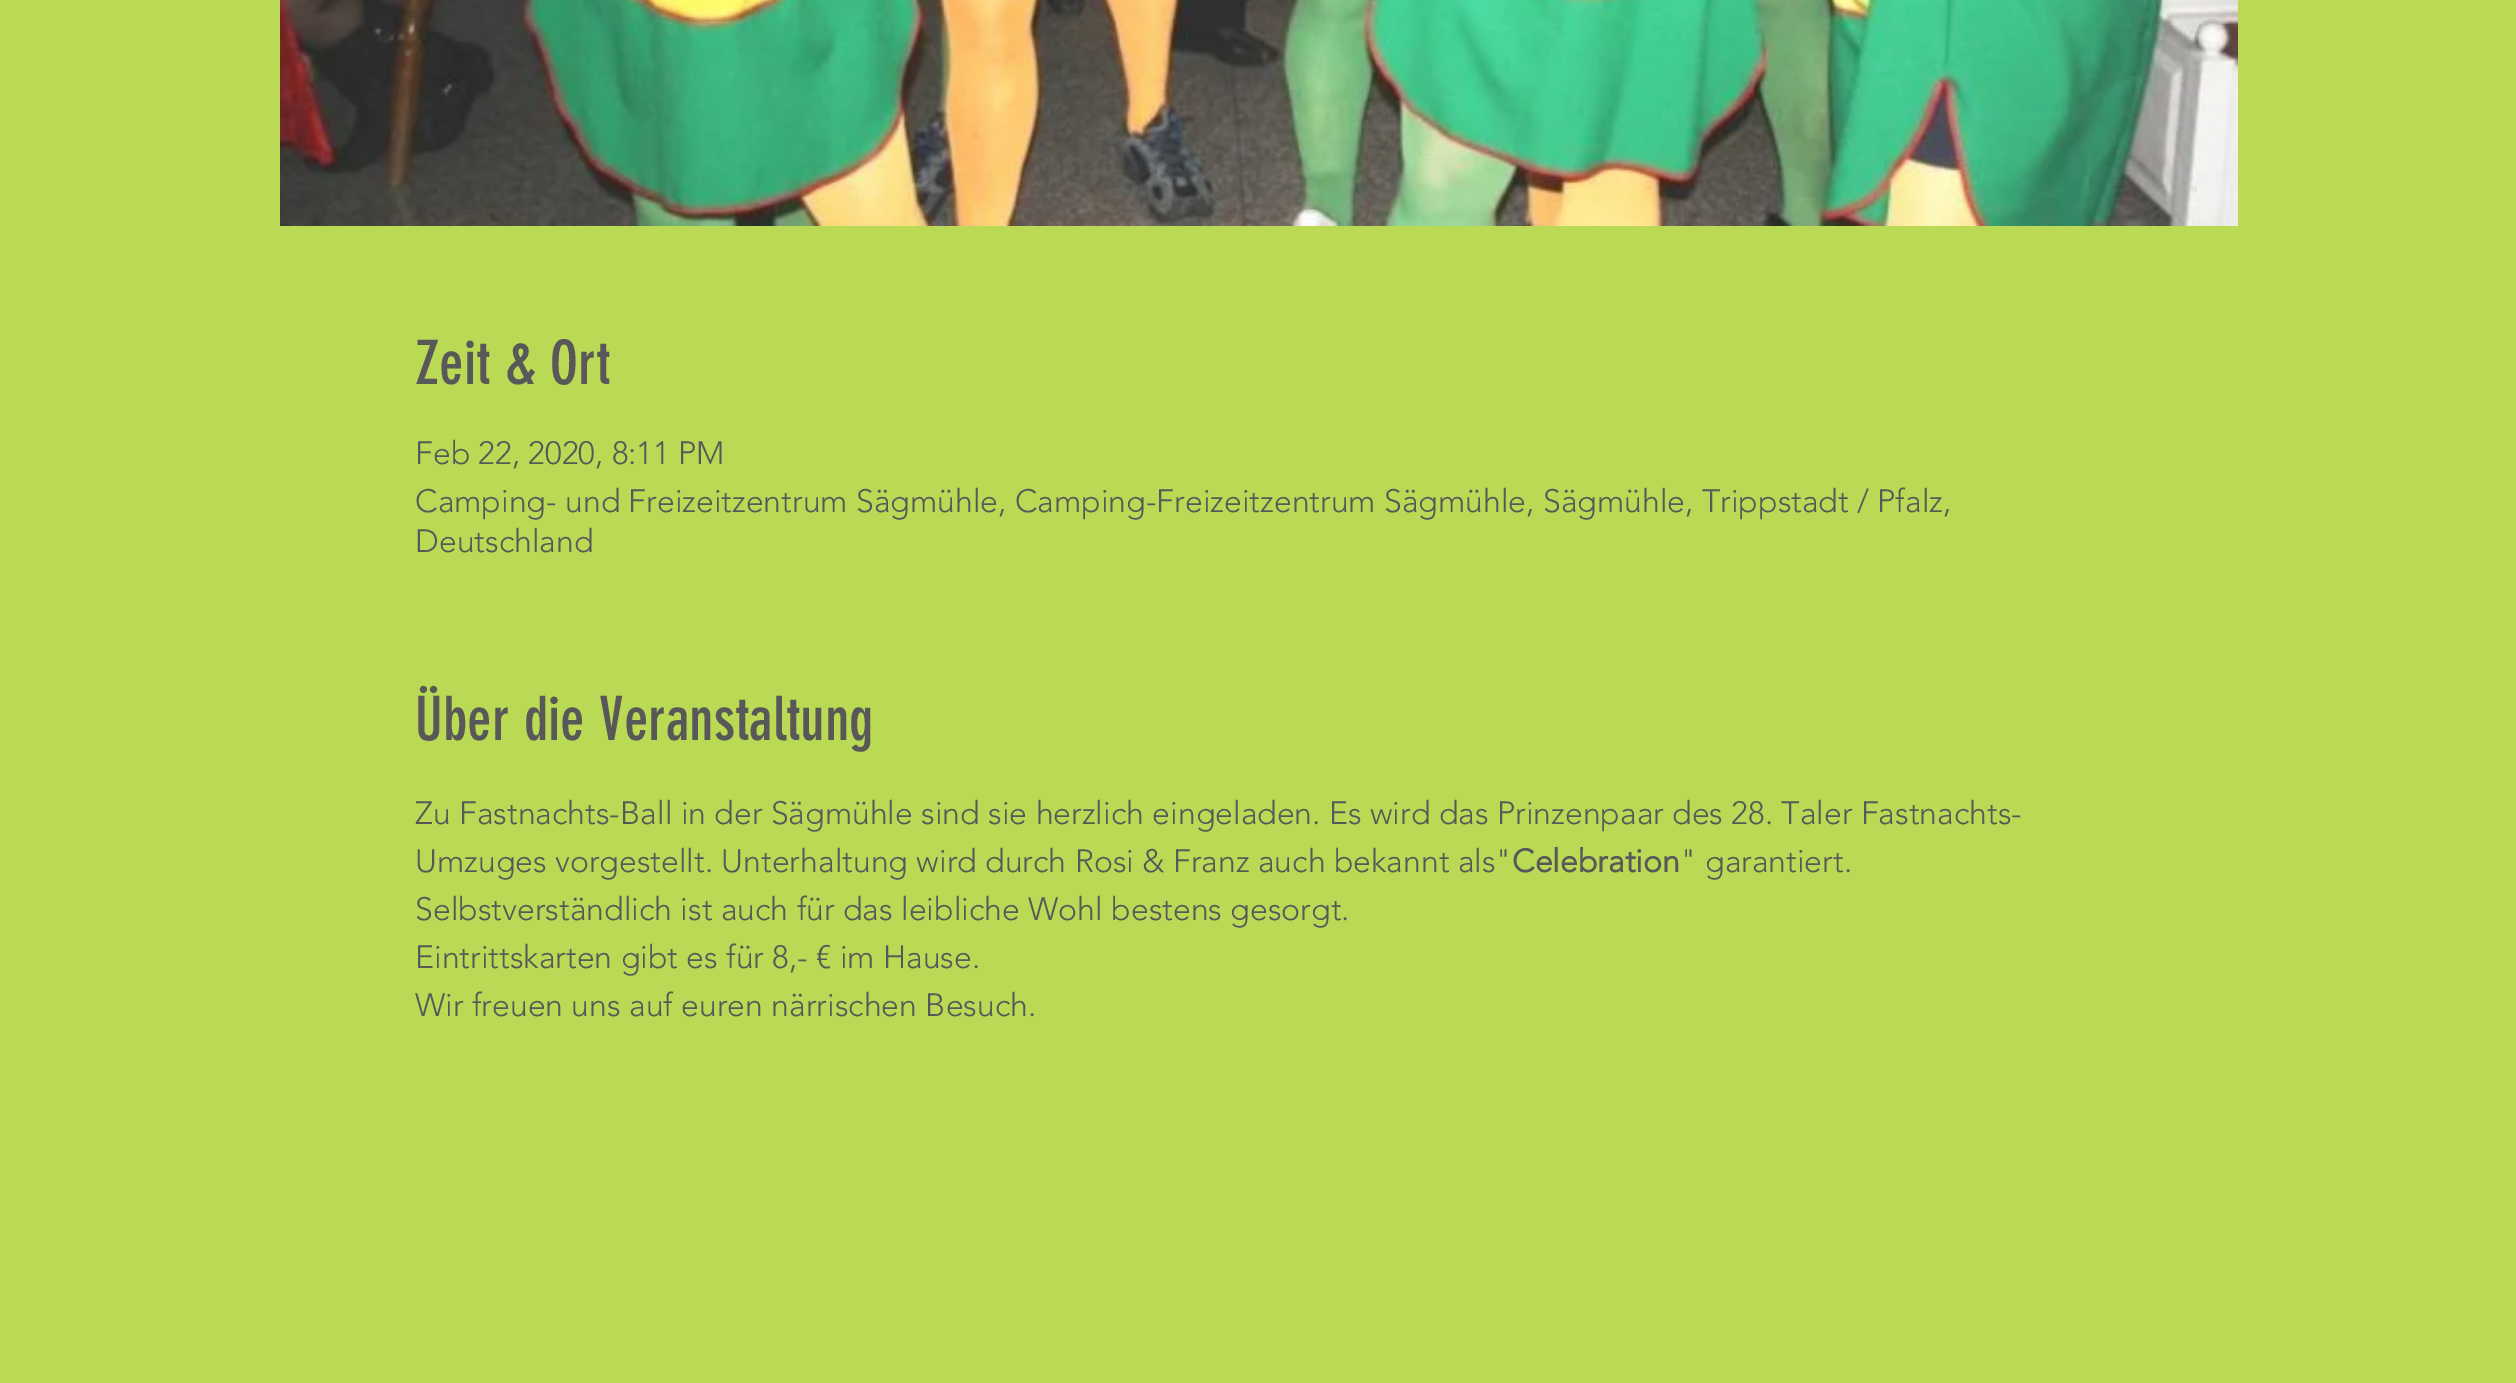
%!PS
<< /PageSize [2516 1383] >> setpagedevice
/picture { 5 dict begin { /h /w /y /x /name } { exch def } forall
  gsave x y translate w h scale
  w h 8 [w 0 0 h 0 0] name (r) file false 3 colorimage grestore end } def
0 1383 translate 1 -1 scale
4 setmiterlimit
0.729 0.855 0.333 setrgbcolor
0 0 2516 1383 rectfill
(img1.rgb) 280 0 1958 226 picture
/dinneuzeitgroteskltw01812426-Regular [60 0 0 -60 0 0] selectfont
0.349 0.345 0.345 setrgbcolor
415 384 moveto (Zeit & Ort) show
/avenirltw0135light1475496-Light [32 0 0 -32 0 0] selectfont
415 464 moveto (Feb 22, 2020, 8:11 PM) show
415 512 moveto (Camping- und Freizeitzentrum Sägmühle, Camping-Freizeitzentrum Sägmühle, Sägmühle, Trippstadt / Pfalz,) show
415 552 moveto (Deutschland) show
/dinneuzeitgroteskltw01812426-Regular [60 0 0 -60 0 0] selectfont
415 740 moveto (Über die Veranstaltung) show
/avenirltw0135light1475496-Light [32 0 0 -32 0 0] selectfont
415 824 moveto (Zu Fastnachts-Ball in der Sägmühle sind sie herzlich eingeladen. Es wird das Prinzenpaar des 28. Taler Fastnachts-) show
415 872 moveto (Umzuges vorgestellt. Unterhaltung wird durch Rosi & Franz auch bekannt als") show
/avenirltw0135light1475496-Bold [32 0 0 -32 0 0] selectfont
1512 872 moveto (Celebration) show
/avenirltw0135light1475496-Light [32 0 0 -32 0 0] selectfont
1680 872 moveto (" garantiert.) show
415 920 moveto (Selbstverständlich ist auch für das leibliche Wohl bestens gesorgt.) show
415 968 moveto (Eintrittskarten gibt es für 8,- € im Hause.) show
415 1016 moveto (Wir freuen uns auf euren närrischen Besuch.) show
showpage
